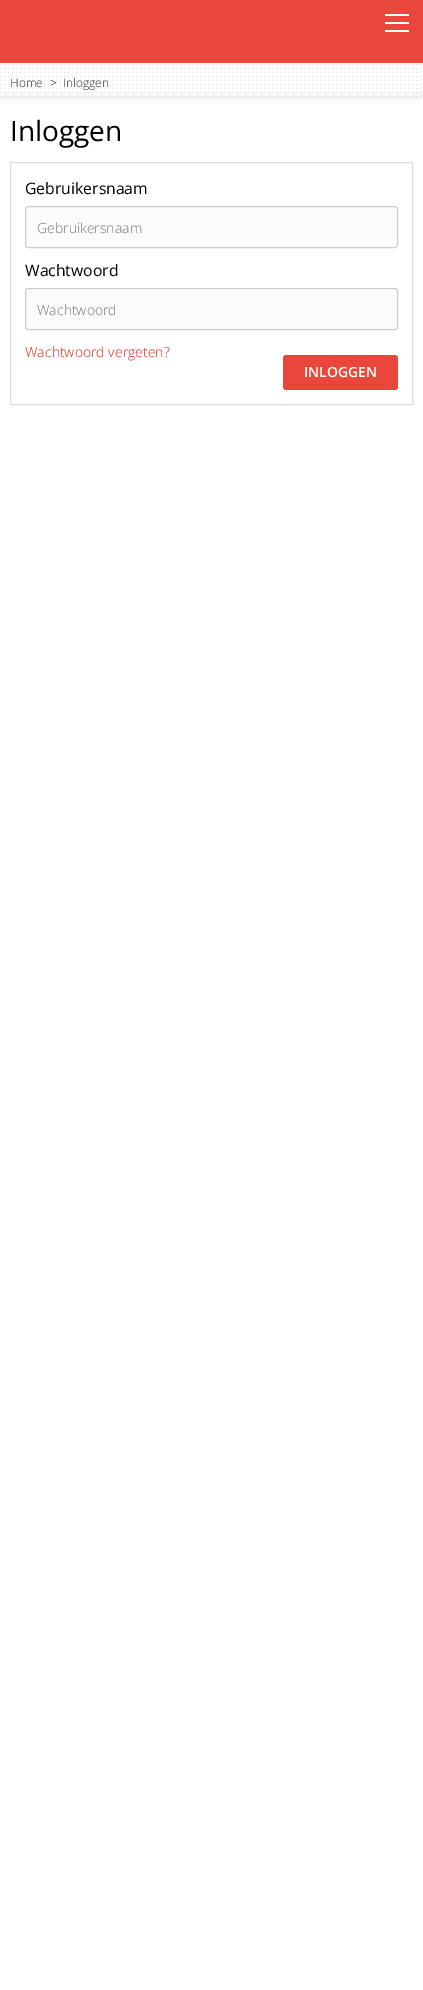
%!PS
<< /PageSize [423 1990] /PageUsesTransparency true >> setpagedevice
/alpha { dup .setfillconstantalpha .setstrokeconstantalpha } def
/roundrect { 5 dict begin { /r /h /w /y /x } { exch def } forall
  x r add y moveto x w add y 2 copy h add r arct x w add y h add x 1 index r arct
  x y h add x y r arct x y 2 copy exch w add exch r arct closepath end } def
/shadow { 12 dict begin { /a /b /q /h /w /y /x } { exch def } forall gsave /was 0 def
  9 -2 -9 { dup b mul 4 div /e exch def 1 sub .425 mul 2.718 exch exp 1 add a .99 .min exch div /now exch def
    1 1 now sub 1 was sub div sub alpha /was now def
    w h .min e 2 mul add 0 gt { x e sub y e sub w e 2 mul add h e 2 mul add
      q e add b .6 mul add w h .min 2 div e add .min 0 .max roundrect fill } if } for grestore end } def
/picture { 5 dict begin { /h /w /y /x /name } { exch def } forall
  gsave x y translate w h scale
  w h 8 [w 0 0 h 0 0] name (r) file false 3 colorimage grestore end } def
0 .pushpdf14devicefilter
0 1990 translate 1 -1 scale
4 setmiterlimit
1 setgray
0 0 423 1990 rectfill
(img1.rgb) 0 63 421 36 picture
0.914 0.278 0.231 setrgbcolor
0 0 423 63 rectfill
1 setgray
385 22 24 2 rectfill
385 14 24 2 rectfill
385 30 24 2 rectfill
0 setgray
0 99 423 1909 0 6 0.12 shadow
/OpenSans-Light [12 0 0 -12 0 0] selectfont
0.2 setgray
10 87 moveto (Home) show
0 setgray
50 87 moveto (>) show
0.2 setgray
63 87 moveto (Inloggen) show
1 setgray
0 99 423 1891 rectfill
/OpenSans-Regular [28 0 0 -28 0 0] selectfont
0 setgray
10 141 moveto (Inloggen) show
0.867 setgray
10.5 162.5 402 242 rectstroke
/OpenSans-Regular [15.75 0 0 -15.75 0 0] selectfont
0 setgray
25 194 moveto (Gebruikersnaam) show
0.984 setgray
25.5 206.5 372 41 2.5 roundrect gsave fill grestore
0.8 setgray
stroke
/OpenSans-Light [14 0 0 -14 0 0] selectfont
0.459 setgray
37 233 moveto (Gebruikersnaam) show
/OpenSans-Regular [15.75 0 0 -15.75 0 0] selectfont
0 setgray
25 276 moveto (Wachtwoord) show
0.984 setgray
25.5 288.5 372 41 2.5 roundrect gsave fill grestore
0.8 setgray
stroke
/OpenSans-Light [14 0 0 -14 0 0] selectfont
0.459 setgray
37 315 moveto (Wachtwoord) show
0.851 0.149 0.094 setrgbcolor
25 357 moveto (Wachtwoord vergeten?) show
0.914 0.278 0.231 setrgbcolor
283 355 115 35 3 roundrect fill
/OpenSans-SemiBold [14 0 0 -14 0 0] selectfont
1 setgray
304 377 moveto (INLOGGEN) show
.poppdf14devicefilter showpage
